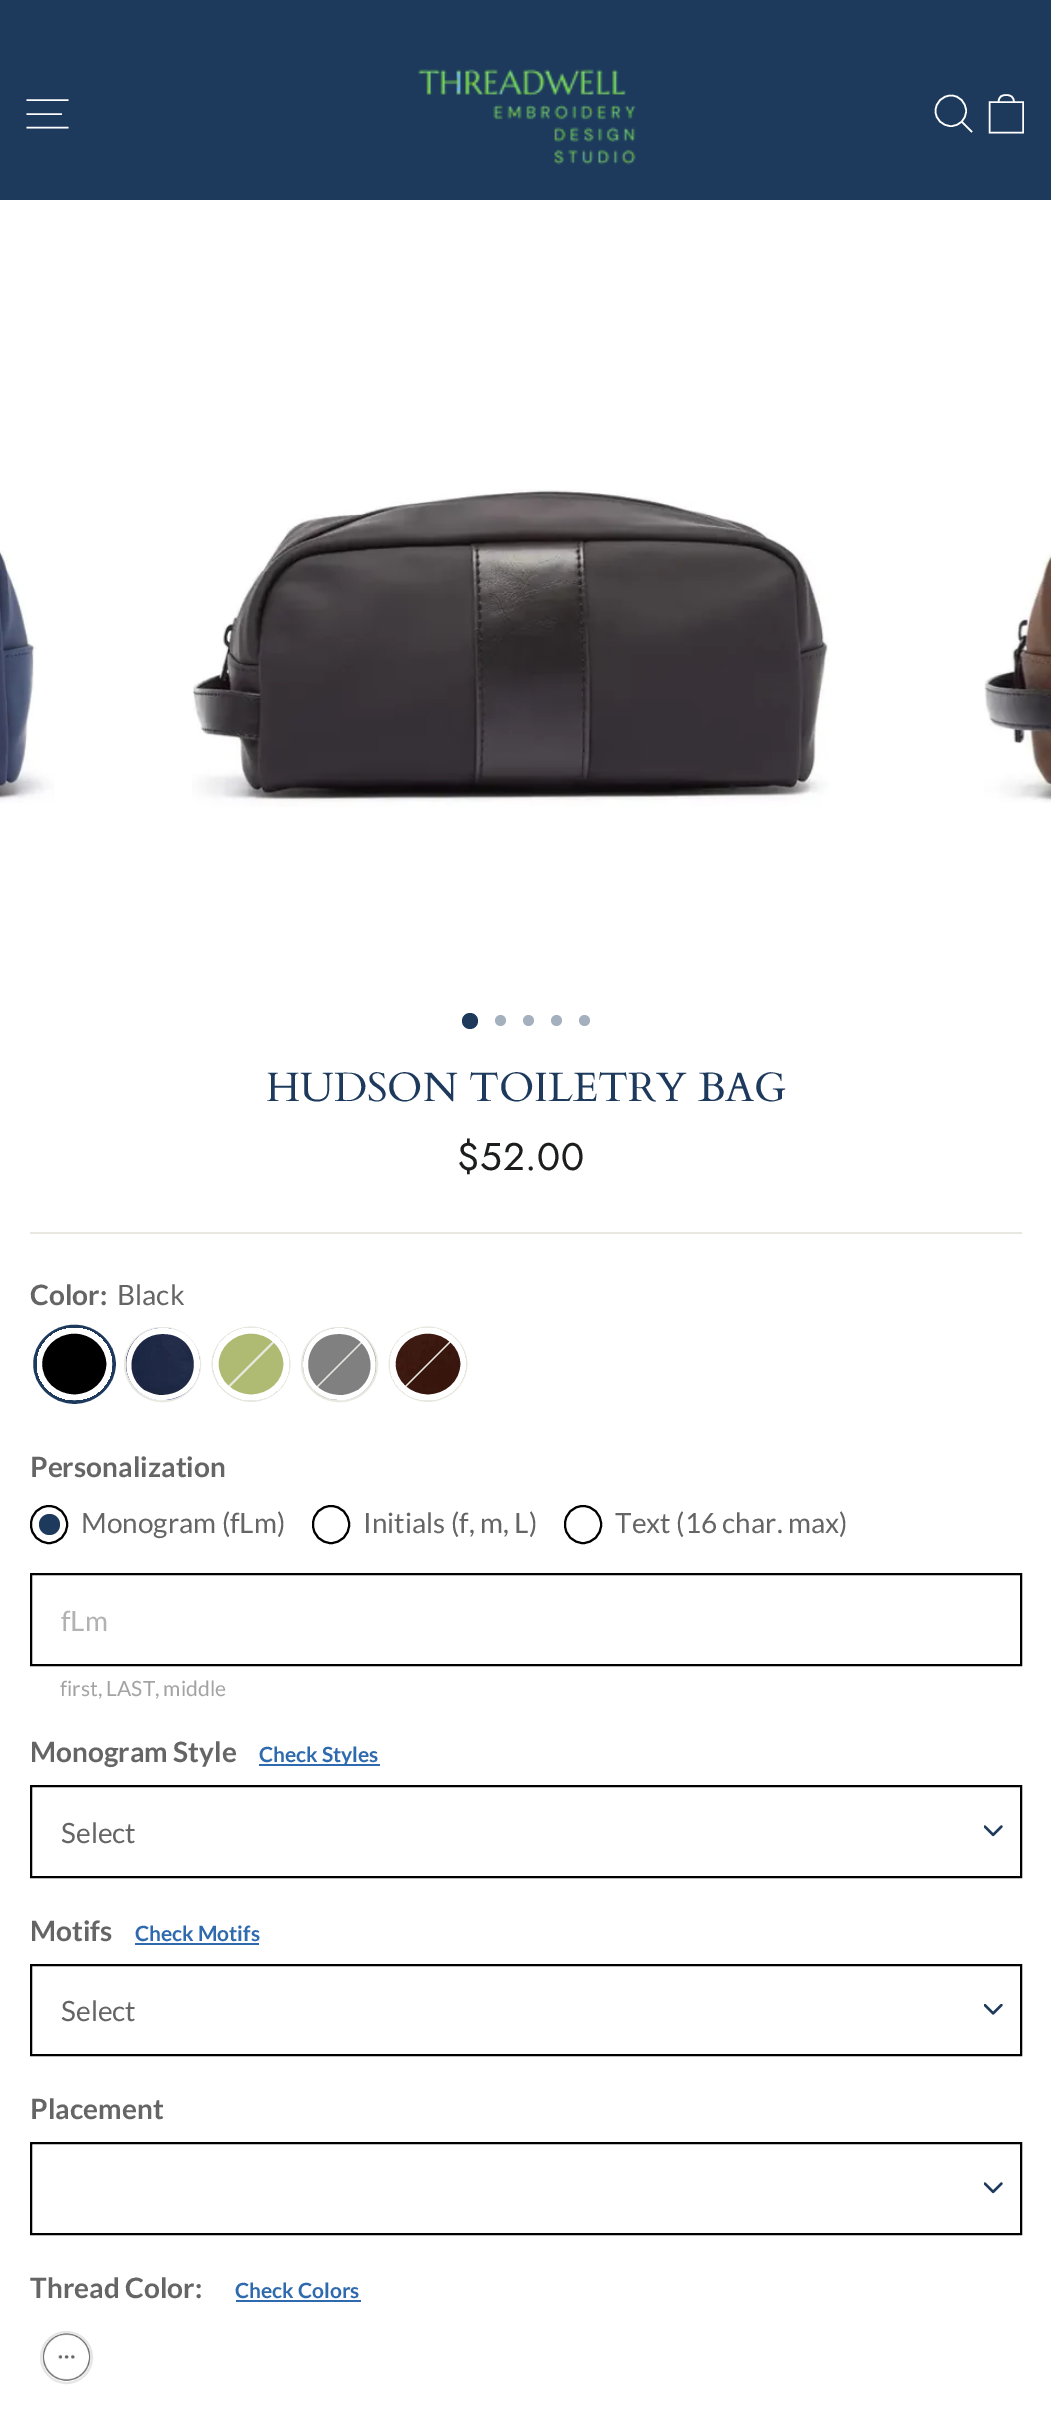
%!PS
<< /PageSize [1051 2411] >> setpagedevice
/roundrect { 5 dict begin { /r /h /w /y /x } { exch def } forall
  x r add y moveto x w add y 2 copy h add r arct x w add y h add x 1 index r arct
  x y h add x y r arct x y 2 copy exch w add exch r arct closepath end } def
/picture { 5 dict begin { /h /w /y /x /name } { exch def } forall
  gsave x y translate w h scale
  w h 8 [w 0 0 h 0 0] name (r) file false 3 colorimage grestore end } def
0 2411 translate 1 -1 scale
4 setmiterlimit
1 setgray
0 0 1051 2411 rectfill
0.114 0.227 0.365 setrgbcolor
0 0 1051 200 rectfill
1 setgray
1.6 setlinewidth
newpath 26.5 100 moveto 68.5 100 lineto 26.5 114 moveto 62 114 lineto 26.5 127.5 moveto 68.5 127.5 lineto stroke
(img1.rgb) 418 69 218 96 picture
newpath 966 111 moveto 966 119.5 959.5 126 951 126 curveto 942.5 126 935.5 119.5 935.5 111 curveto 935.5 102.5 942.5 95.5 951 95.5 curveto 959.5 95.5 966 102.5 966 111 curveto closepath 972 132 moveto 962 122 lineto stroke
newpath 989.5 102 moveto 1023 102 lineto 1023 132.5 lineto 989.5 132.5 lineto closepath 998.5 102.5 moveto 998.5 96.5 1002 95 1006 95 curveto 1010.5 95 1014 96.5 1014 102.5 curveto stroke
(img2.rgb) 0 550 54 253 picture
(img3.rgb) 192 489 637 318 picture
(img4.rgb) 984 547 67 256 picture
0.114 0.227 0.365 setrgbcolor
newpath 470 1021 8 0 360 arc closepath fill
0.647 0.69 0.745 setrgbcolor
newpath 500.5 1020.5 5.5 0 360 arc closepath fill
newpath 528.5 1020.5 5.5 0 360 arc closepath fill
newpath 556.5 1020.5 5.5 0 360 arc closepath fill
newpath 584.5 1020.5 5.5 0 360 arc closepath fill
/Cardo-Regular [40.9 0 0 -40.9 0 0] selectfont
0.114 0.227 0.365 setrgbcolor
266 1101 moveto (HUDSON TOILETRY BAG) show
/Jost-Regular [38.5 0 0 -38.5 0 0] selectfont
0.11 0.114 0.114 setrgbcolor
457 1170 moveto 0.75 0 ($52.00) ashow
0.91 0.91 0.882 setrgbcolor
30 1232 992 2 rectfill
/Lato-Bold [28 0 0 -28 0 0] selectfont
0.4 0.396 0.396 setrgbcolor
30 1305 moveto (Color:) show
/Lato-Regular [28 0 0 -28 0 0] selectfont
117 1305 moveto (Black) show
0.114 0.227 0.365 setrgbcolor
3.5 setlinewidth
newpath 74.5 1326.5 moveto 96 1326.5 114 1343.5 114 1364 curveto 114 1385 96 1402 74.5 1402 curveto 52.5 1402 35 1385 35 1364 curveto 35 1343.5 52.5 1326.5 74.5 1326.5 curveto closepath stroke
(img5.rgb) 37 1328 75 72 picture
gsave
newpath 74.5 1328 moveto 95 1328 112 1344.5 112 1364 curveto 112 1384 95 1400 74.5 1400 curveto 53.5 1400 37 1384 37 1364 curveto 37 1344.5 53.5 1328 74.5 1328 curveto closepath clip newpath
1 setgray
7 setlinewidth
newpath 74.5 1330 moveto 94 1330 110 1345.5 110 1364 curveto 110 1383 94 1398 74.5 1398 curveto 54.5 1398 38.5 1383 38.5 1364 curveto 38.5 1345.5 54.5 1330 74.5 1330 curveto closepath stroke
grestore
0.91 0.91 0.882 setrgbcolor
2 setlinewidth
125 1328 75 73 36.5 roundrect stroke
0 0 0.502 setrgbcolor
126 1328 74 72 36 roundrect fill
(img6.rgb) 126 1328 74 72 picture
1 setgray
newpath 162 1328 moveto 127 1328 113 1374 142 1394 curveto 148 1398 156 1401 164 1400 curveto 215 1396 209 1328 164 1328 curveto closepath 162 1334 moveto 132 1334 120 1373 144 1390 curveto 150 1393 157 1396 164 1395 curveto 206 1392 202 1334 164 1334 curveto closepath eofill
0.91 0.91 0.882 setrgbcolor
1.8 setlinewidth
newpath 251 1327.5 moveto 272.5 1327.5 289.5 1344 289.5 1364 curveto 289.5 1384.5 272.5 1401 251 1401 curveto 230 1401 212.5 1384.5 212.5 1364 curveto 212.5 1344 230 1327.5 251 1327.5 curveto closepath stroke
(img7.rgb) 213 1328 76 72 picture
newpath 276 1338 moveto 278 1339 lineto 227 1390 lineto 225 1389 lineto closepath fill
gsave
newpath 251 1328 moveto 272 1328 289 1344.5 289 1364 curveto 289 1384 272 1400 251 1400 curveto 230.5 1400 213.5 1384 213.5 1364 curveto 213.5 1344.5 230.5 1328 251 1328 curveto closepath clip newpath
1 setgray
7 setlinewidth
newpath 251 1330 moveto 271 1330 287 1345.5 287 1364 curveto 287 1383 271 1398 251 1398 curveto 231.5 1398 215 1383 215 1364 curveto 215 1345.5 231.5 1330 251 1330 curveto closepath stroke
grestore
2 setlinewidth
302 1328 75 73 36.5 roundrect stroke
0.502 setgray
303 1328 73 72 36 roundrect fill
0.91 0.91 0.882 setrgbcolor
newpath 365 1338 moveto 366 1339 lineto 315 1390 lineto 314 1389 lineto closepath fill
1 setgray
newpath 339 1328 moveto 300 1328 289 1382 325 1397 curveto 331 1400 333 1399 339 1400 curveto 346 1401 354 1398 360 1394 curveto 389 1374 375 1328 340 1328 curveto closepath 338 1334 moveto 300 1334 296 1392 338 1395 curveto 345 1396 352 1393 358 1390 curveto 382 1373 370 1334 340 1334 curveto closepath eofill
0.91 0.91 0.882 setrgbcolor
1.8 setlinewidth
newpath 428 1327.5 moveto 449 1327.5 466.5 1344 466.5 1364 curveto 466.5 1384.5 449 1401 428 1401 curveto 406.5 1401 389.5 1384.5 389.5 1364 curveto 389.5 1344 406.5 1327.5 428 1327.5 curveto closepath stroke
(img8.rgb) 390 1328 76 72 picture
newpath 453 1338 moveto 454 1339 lineto 403 1390 lineto 402 1389 lineto closepath fill
gsave
newpath 428 1328 moveto 448.5 1328 465.5 1344.5 465.5 1364 curveto 465.5 1384 448.5 1400 428 1400 curveto 407 1400 390 1384 390 1364 curveto 390 1344.5 407 1328 428 1328 curveto closepath clip newpath
1 setgray
7 setlinewidth
newpath 428 1330 moveto 447.5 1330 464 1345.5 464 1364 curveto 464 1383 447.5 1398 428 1398 curveto 408 1398 392 1383 392 1364 curveto 392 1345.5 408 1330 428 1330 curveto closepath stroke
grestore
/Lato-Bold [28 0 0 -28 0 0] selectfont
0.4 0.396 0.396 setrgbcolor
30 1477 moveto (Personalization) show
0.114 0.227 0.365 setrgbcolor
newpath 49.5 1524.5 10.5 0 360 arc closepath fill
0 setgray
2 setlinewidth
31 1506 36 37 18 roundrect stroke
/Lato-Regular [28 0 0 -28 0 0] selectfont
0.4 0.396 0.396 setrgbcolor
81 1533 moveto (Monogram \(fLm\)) show
0 setgray
313 1506 36 37 18 roundrect stroke
0.4 0.396 0.396 setrgbcolor
363 1533 moveto (Initials \(f, m, L\)) show
0 setgray
565 1506 36 37 18 roundrect stroke
0.4 0.396 0.396 setrgbcolor
615 1533 moveto (Text \(16 char. max\)) show
0 setgray
31 1574 990 91 rectstroke
0.702 0.698 0.698 setrgbcolor
61 1631 moveto (fLm) show
/Lato-Regular [21 0 0 -21 0 0] selectfont
0.639 setgray
60 1696 moveto (first, LAST, middle) show
/Lato-Bold [28 0 0 -28 0 0] selectfont
0.4 0.396 0.396 setrgbcolor
30 1762 moveto (Monogram Style) show
0.18 0.416 0.678 setrgbcolor
259 1764 121 2 rectfill
/Lato-Bold [21 0 0 -21 0 0] selectfont
259 1762 moveto (Check Styles) show
(img9.rgb) 984 1825 19 12 picture
0 setgray
31 1786 990 91 rectstroke
/Lato-Regular [28 0 0 -28 0 0] selectfont
0.4 0.396 0.396 setrgbcolor
61 1843 moveto (Select) show
/Lato-Bold [28 0 0 -28 0 0] selectfont
30 1941 moveto (Motifs) show
/Lato-Bold [21 0 0 -21 0 0] selectfont
0.18 0.416 0.678 setrgbcolor
135 1941 moveto (Check Motifs) show
135 1943 124 2 rectfill
(img10.rgb) 984 2004 19 11 picture
0 setgray
31 1965 990 90 rectstroke
/Lato-Regular [28 0 0 -28 0 0] selectfont
0.4 0.396 0.396 setrgbcolor
61 2021 moveto (Select) show
/Lato-Bold [28 0 0 -28 0 0] selectfont
30 2119 moveto (Placement) show
(img9.rgb) 984 2182 19 12 picture
0 setgray
31 2143 990 91 rectstroke
0.4 0.396 0.396 setrgbcolor
30 2298 moveto (Thread Color:) show
/Lato-Bold [21 0 0 -21 0 0] selectfont
0.18 0.416 0.678 setrgbcolor
235 2298 moveto (Check Colors) show
236 2300 125 2 rectfill
(img11.rgb) 42 2333 49 48 picture
0.902 setgray
newpath 66.5 2357.5 25.5 0 360 arc closepath stroke
showpage
